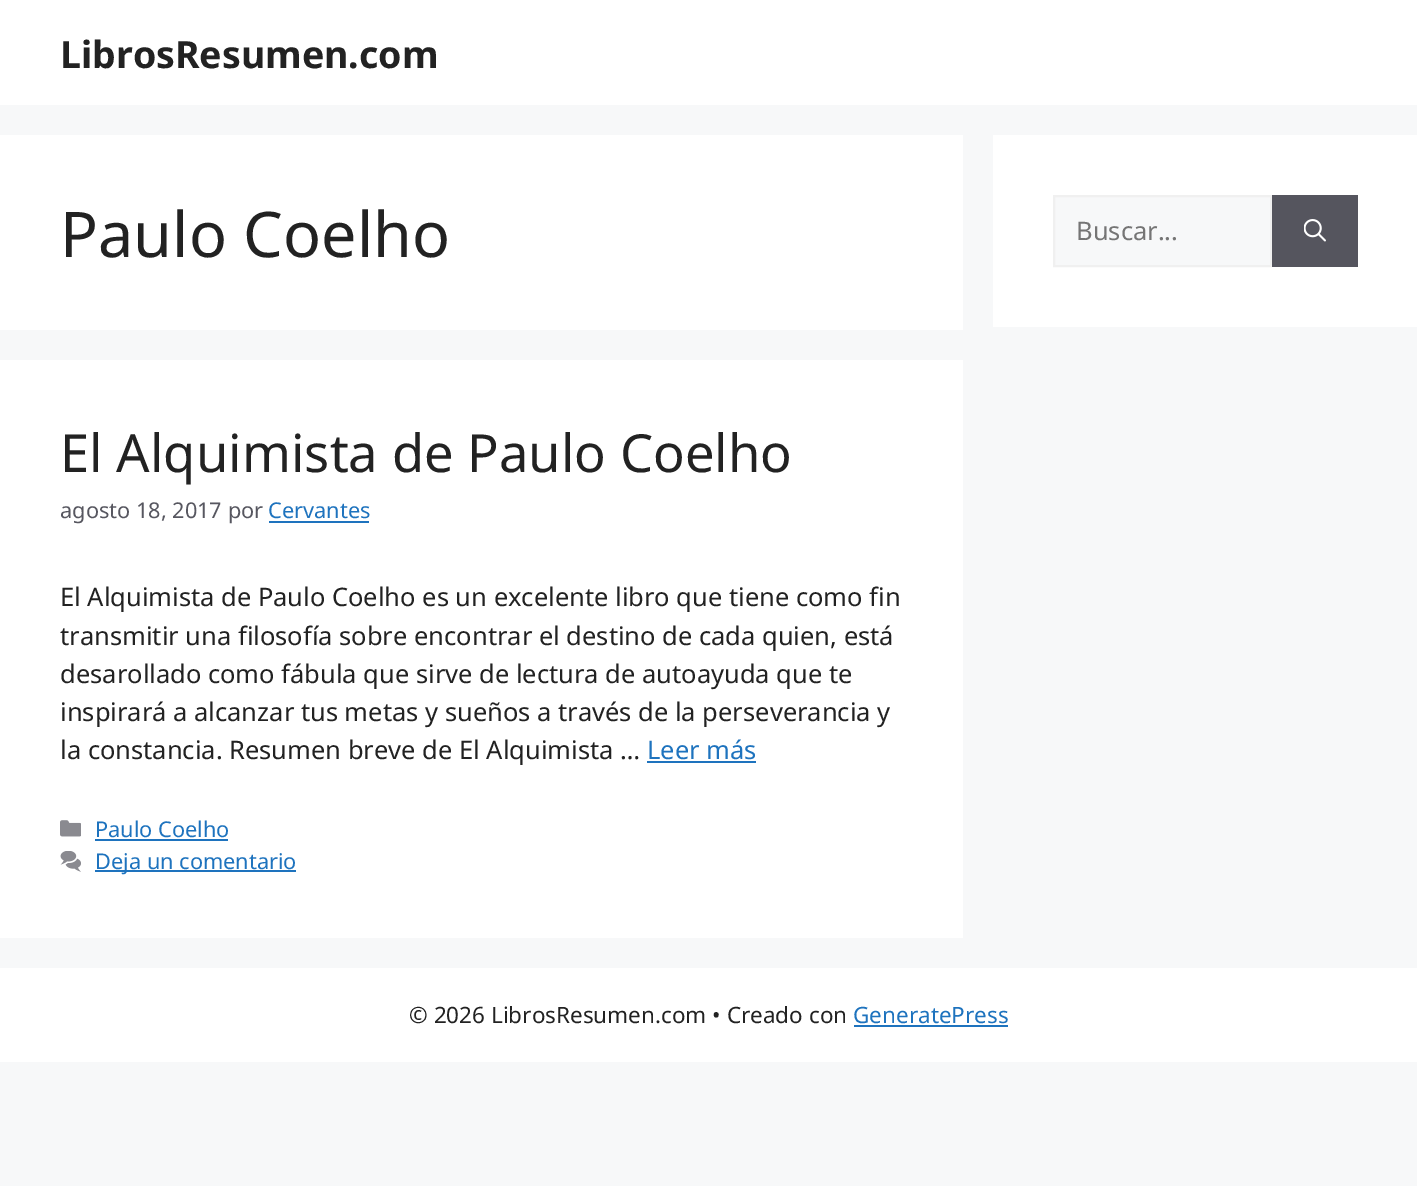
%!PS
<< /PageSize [1417 1186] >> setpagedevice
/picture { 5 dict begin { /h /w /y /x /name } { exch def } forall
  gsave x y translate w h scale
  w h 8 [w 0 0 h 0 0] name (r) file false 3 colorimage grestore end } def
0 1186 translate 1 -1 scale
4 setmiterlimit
0.969 0.973 0.976 setrgbcolor
0 0 1417 1186 rectfill
1 setgray
0 0 1417 105 rectfill
/NotoSans-Bold [37.5 0 0 -37.5 0 0] selectfont
0.133 setgray
60 68 moveto (LibrosResumen.com) show
1 setgray
0 135 963 195 rectfill
/NotoSans-Regular [63 0 0 -63 0 0] selectfont
0.133 setgray
60 257 moveto (Paulo Coelho) show
1 setgray
0 360 963 578 rectfill
/NotoSans-Regular [52.5 0 0 -52.5 0 0] selectfont
0.133 setgray
60 472 moveto (El Alquimista de Paulo Coelho) show
/NotoSans-Regular [21.75 0 0 -21.75 0 0] selectfont
0.341 0.341 0.376 setrgbcolor
60 518 moveto (agosto 18, 2017 por) show
0.118 0.451 0.745 setrgbcolor
268 518 moveto (Cervantes) show
269 521 100 2 rectfill
/NotoSans-Regular [25.5 0 0 -25.5 0 0] selectfont
0.133 setgray
60 606 moveto (El Alquimista de Paulo Coelho es un excelente libro que tiene como fin) show
60 645 moveto (transmitir una filosofía sobre encontrar el destino de cada quien, está) show
60 683 moveto (desarollado como fábula que sirve de lectura de autoayuda que te) show
60 721 moveto (inspirará a alcanzar tus metas y sueños a través de la perseverancia y) show
60 759 moveto (la constancia. Resumen breve de El Alquimista …) show
0.118 0.451 0.745 setrgbcolor
647 759 moveto (Leer más) show
647 761 109 2 rectfill
(img1.rgb) 60 820 21 17 picture
/NotoSans-Regular [21.75 0 0 -21.75 0 0] selectfont
95 837 moveto (Paulo Coelho) show
95 839 133 2 rectfill
(img2.rgb) 60 851 21 21 picture
95 870 201 2 rectfill
95 869 moveto (Deja un comentario) show
1 setgray
993 135 424 192 rectfill
0.969 0.973 0.976 setrgbcolor
newpath 1054 196 moveto 1271 196 lineto 1271 266 lineto 1054 266 lineto closepath gsave fill grestore
0.941 setgray
2 setlinewidth
stroke
/NotoSans-Regular [25.5 0 0 -25.5 0 0] selectfont
0.459 setgray
1076 240 moveto (Buscar...) show
0.333 0.333 0.369 setrgbcolor
1272 195 86 72 rectfill
(img3.rgb) 1304 219 22 23 picture
1 setgray
0 968 1417 94 rectfill
/NotoSans-Regular [22.5 0 0 -22.5 0 0] selectfont
0.133 setgray
409 1023 moveto (© 2026 LibrosResumen.com • Creado con) show
0.118 0.451 0.745 setrgbcolor
853 1023 moveto (GeneratePress) show
854 1025 154 2 rectfill
showpage
